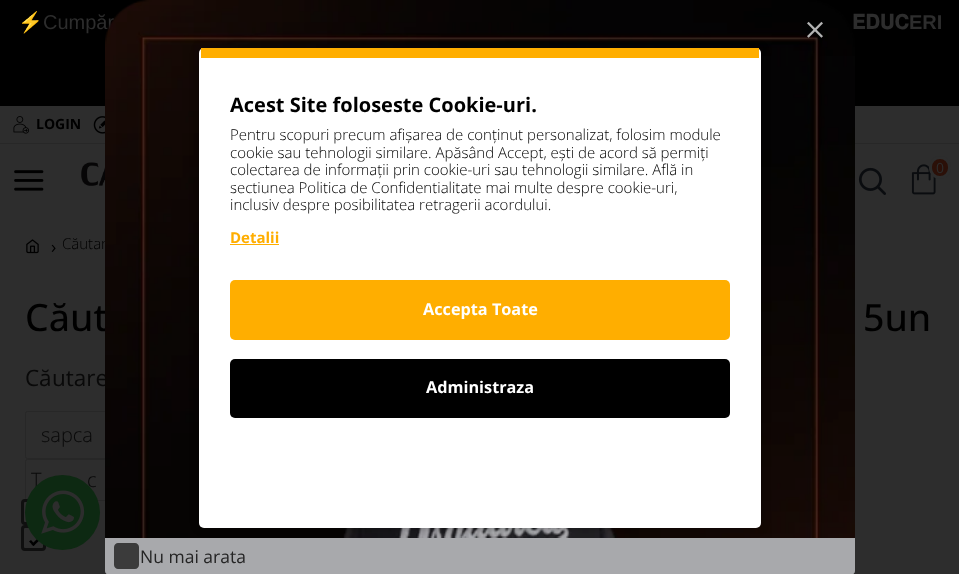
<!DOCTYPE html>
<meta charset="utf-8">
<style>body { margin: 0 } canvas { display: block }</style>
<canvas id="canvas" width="959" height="574"></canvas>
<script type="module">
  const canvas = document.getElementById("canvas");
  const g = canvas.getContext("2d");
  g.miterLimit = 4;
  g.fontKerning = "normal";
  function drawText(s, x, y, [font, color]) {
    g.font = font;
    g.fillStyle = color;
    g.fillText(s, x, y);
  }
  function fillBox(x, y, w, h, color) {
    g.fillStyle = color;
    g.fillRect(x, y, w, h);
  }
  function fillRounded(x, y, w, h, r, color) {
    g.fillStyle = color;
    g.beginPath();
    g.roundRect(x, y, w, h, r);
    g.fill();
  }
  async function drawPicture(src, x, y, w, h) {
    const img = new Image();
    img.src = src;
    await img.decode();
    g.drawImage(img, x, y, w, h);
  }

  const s1 = ["20px Noto Color Emoji", "#2D2D2D"];
  const s2 = ["20px Liberation Sans", "#2D2D2D"];
  const s3 = ["bold 20px FreeSans", "#2D2D2D"];
  const s4 = ["bold 20px Liberation Sans", "#2D2D2D"];
  const s5 = ["bold 14px Open Sans", "#000000"];
  const s6 = ["14px Open Sans", "#2D2D2D"];
  const s7 = ["17.5px Open Sans", "#000000"];
  const s8 = ["300 15px Open Sans", "#000000"];
  const s9 = ["500 37.5px Open Sans", "#000000"];
  const s10 = ["22.5px Open Sans", "#090909"];
  const s11 = ["22.5px 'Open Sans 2'", "#090909"];
  const s12 = ["300 20px Open Sans", "#090909"];
  const s13 = ["bold 20px Open Sans", "#000000"];
  const s14 = ["bold 15px Open Sans", "#FFAE00"];
  const s15 = ["bold 16.25px Open Sans", "#FFFFFF"];
  const s16 = ["17.5px Open Sans", "#242424"];

  fillBox(0, 0, 959, 574, "#2D2D2D");
  fillBox(0, 0, 959, 106, "#000000");
  drawText("⚡", 18, 29, s1);
  drawText("Cumpăr", 43, 29, s2);
  drawText("𝐄𝐃𝐔𝐂", 852, 29, s3);
  drawText("ERI", 909, 29, s4);
  fillBox(0, 143, 959, 1, "#272727");
  await drawPicture("pic1.png", 13, 116, 16, 18);
  drawText("LOGIN", 36, 129, s5);
  await drawPicture("pic2.png", 93, 116, 12, 18);
  await drawPicture("pic3.png", 81, 162, 24, 24);
  await drawPicture("pic4.png", 14, 170, 30, 21);
  await drawPicture("pic5.png", 858, 167, 28, 28);
  await drawPicture("pic6.png", 911, 164, 25, 31);
  g.fillStyle = "#2B1008";
  g.beginPath();
  g.roundRect(930.5, 157.5, 19, 20, 9.5);
  g.fill();
  g.strokeStyle = "#2D2D2D";
  g.lineWidth = 3;
  g.stroke();
  drawText("0", 936, 173, s6);
  await drawPicture("pic7.png", 26, 239, 13, 15);
  drawText("›", 51, 253, s7);
  drawText("Căutar", 62, 249, s8);
  drawText("Căut", 25, 331, s9);
  drawText("5un", 863, 331, s9);
  drawText("C", 25, 386, s10);
  drawText("ă", 39, 386, s11);
  drawText("utare", 52, 386, s10);
  g.beginPath();
  g.roundRect(25.5, 411.5, 255, 47, 2);
  g.strokeStyle = "#272727";
  g.lineWidth = 1;
  g.stroke();
  drawText("sapca", 41, 442, s12);
  g.beginPath();
  g.roundRect(25.5, 459.5, 624, 41, 2);
  g.stroke();
  drawText("T", 31, 487, s12);
  drawText("c", 87, 487, s12);
  g.fillStyle = "#2D2D2D";
  g.beginPath();
  g.roundRect(22.5, 500.5, 22, 23, 2.5);
  g.fill();
  g.strokeStyle = "#0F0F0F";
  g.lineWidth = 3;
  g.stroke();
  g.beginPath();
  g.roundRect(22.5, 526.5, 22, 23, 2.5);
  g.stroke();
  g.fillStyle = "#000000";
  g.beginPath();
  g.moveTo(40.5, 535.5);
  g.lineTo(42.5, 537.5);
  g.lineTo(33.5, 546);
  g.lineTo(31.5, 544.5);
  g.closePath();
  g.fill();
  g.beginPath();
  g.moveTo(31, 540);
  g.lineTo(35, 544.5);
  g.lineTo(33.5, 546);
  g.lineTo(29, 541.5);
  g.closePath();
  g.fill();
  await drawPicture("pic10.png", 105, 0, 750, 538);
  g.fillStyle = "#A8A9AC";
  g.beginPath();
  g.moveTo(105, 538);
  g.lineTo(855, 538);
  g.lineTo(855, 571);
  g.bezierCurveTo(855, 573, 853, 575, 851, 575);
  g.lineTo(109, 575);
  g.bezierCurveTo(107, 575, 105, 573, 105, 571);
  g.closePath();
  g.fill();
  g.fillStyle = "rgba(0, 0, 0, 0.3)";
  g.filter = "blur(4.5px)";
  g.beginPath();
  g.roundRect(199, 48, 562, 480, 5);
  g.fill();
  g.filter = "none";
  fillRounded(199, 48, 562, 480, 5, "#FFFFFF");
  fillBox(201, 48, 558, 10, "#FFAE00");
  drawText("Acest Site foloseste Cookie-uri.", 230, 112, s13);
  drawText("Pentru scopuri precum afișarea de conținut personalizat, folosim module", 230, 140, s8);
  drawText("cookie sau tehnologii similare. Apăsând Accept, ești de acord să permiți", 230, 158, s8);
  drawText("colectarea de informații prin cookie-uri sau tehnologii similare. Află in", 230, 175, s8);
  drawText("sectiunea Politica de Confidentialitate mai multe despre cookie-uri,", 230, 193, s8);
  drawText("inclusiv despre posibilitatea retragerii acordului.", 230, 210, s8);
  drawText("Detalii", 230, 243, s14);
  fillBox(230, 244, 49, 1, "#FFAE00");
  fillRounded(230, 280, 500, 60, 5, "#FFAE00");
  drawText("Accepta Toate", 423, 315, s15);
  fillRounded(230, 359, 500, 59, 5, "#000000");
  drawText("Administraza", 426, 393, s15);
  g.fillStyle = "#0D2912";
  g.beginPath();
  g.arc(62.5, 512.5, 37.5, 0, Math.PI * 2);
  g.fill();
  await drawPicture("pic8.png", 41, 490, 44, 44);
  await drawPicture("pic9.png", 807, 21, 16, 17);
  g.fillStyle = "#3B3B3B";
  g.beginPath();
  g.moveTo(118, 543);
  g.lineTo(135, 543);
  g.bezierCurveTo(137, 543, 139, 545, 139, 547);
  g.lineTo(139, 565);
  g.bezierCurveTo(139, 567, 137, 569, 135, 569);
  g.lineTo(118, 569);
  g.bezierCurveTo(116, 569, 114, 567, 114, 565);
  g.lineTo(114, 547);
  g.bezierCurveTo(114, 545, 116, 543, 118, 543);
  g.closePath();
  g.fill();
  drawText("Nu mai arata", 140, 563, s16);
</script>
